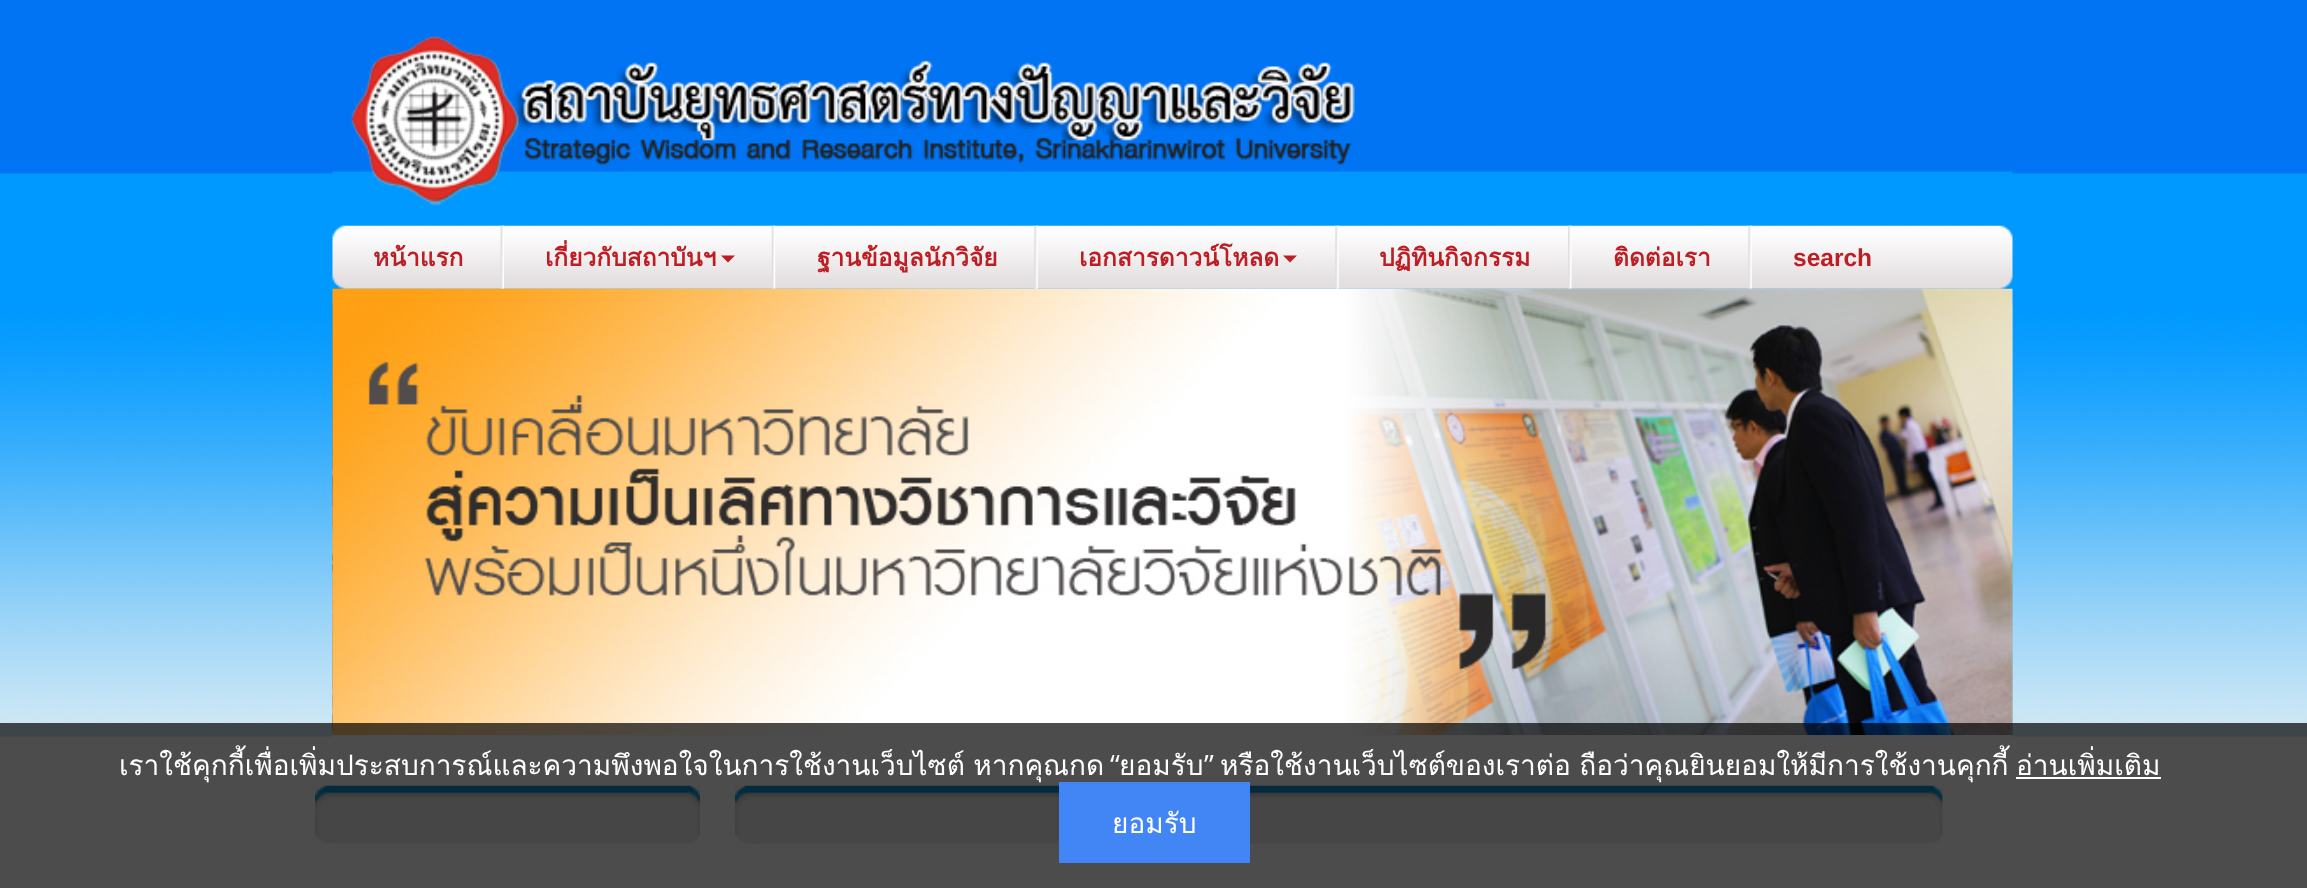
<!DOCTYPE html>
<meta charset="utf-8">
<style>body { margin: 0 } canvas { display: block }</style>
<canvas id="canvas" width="2307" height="888"></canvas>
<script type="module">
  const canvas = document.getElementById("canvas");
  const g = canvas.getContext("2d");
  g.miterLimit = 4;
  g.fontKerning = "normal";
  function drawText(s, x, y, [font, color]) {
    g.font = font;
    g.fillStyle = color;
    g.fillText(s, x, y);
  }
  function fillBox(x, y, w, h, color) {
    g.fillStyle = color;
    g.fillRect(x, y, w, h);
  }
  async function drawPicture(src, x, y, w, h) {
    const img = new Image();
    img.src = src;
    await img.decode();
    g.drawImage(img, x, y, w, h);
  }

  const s1 = ["bold 24.5px Loma", "#BD1E24"];
  const s2 = ["bold 24.5px Liberation Sans", "#BD1E24"];
  const s3 = ["28px Loma", "#FFFFFF"];
  const s4 = ["28px Open Sans", "#FFFFFF"];

  fillBox(0, 0, 2307, 888, "#FFFFFF");
  await drawPicture("pic1.png", 0, 0, 2307, 737);
  await drawPicture("pic2.png", 332, 171, 1681, 566);
  await drawPicture("pic3.png", 351, 36, 1004, 170);
  await drawPicture("pic4.png", 332, 225, 1681, 64);
  await drawPicture("pic5.png", 500, 225, 4, 64);
  drawText("หน้าแรก", 373, 266, s1);
  await drawPicture("pic6.png", 771, 225, 5, 64);
  drawText("เกี่ยวกับสถาบันฯ", 545, 266, s1);
  g.beginPath();
  g.moveTo(721, 255.5);
  g.lineTo(735, 255.5);
  g.lineTo(728, 262.5);
  g.closePath();
  g.fill();
  await drawPicture("pic7.png", 1034, 225, 4, 64);
  drawText("ฐานข้อมูลนักวิจัย", 817, 266, s1);
  await drawPicture("pic8.png", 1335, 225, 4, 64);
  drawText("เอกสารดาวน์โหลด", 1079, 266, s1);
  g.beginPath();
  g.moveTo(1283, 255.5);
  g.lineTo(1297, 255.5);
  g.lineTo(1290, 262.5);
  g.closePath();
  g.fill();
  await drawPicture("pic9.png", 1568, 225, 4, 64);
  drawText("ปฏิทินกิจกรรม", 1379, 266, s1);
  await drawPicture("pic10.png", 1748, 225, 4, 64);
  drawText("ติดต่อเรา", 1613, 266, s1);
  drawText("search", 1793, 266, s2);
  await drawPicture("pic11.png", 332, 288, 1681, 447);
  await drawPicture("pic12.png", 332, 785, 368, 59);
  await drawPicture("pic13.png", 315, 785, 20, 59);
  await drawPicture("pic14.png", 752, 785, 1191, 59);
  await drawPicture("pic13.png", 735, 785, 20, 59);
  fillBox(0, 723, 2307, 165, "rgba(0, 0, 0, 0.7)");
  g.wordSpacing = "-1px";
  drawText("เราใช้คุกกี้เพื่อเพิ่มประสบการณ์และความพึงพอใจในการใช้งานเว็บไซต์ หากคุณกด", 119, 775, s3);
  g.wordSpacing = "0px";
  drawText("“", 1110, 775, s4);
  drawText("ยอมรับ", 1119, 775, s3);
  drawText("”", 1204, 775, s4);
  g.wordSpacing = "-1px";
  drawText("หรือใช้งานเว็บไซต์ของเราต่อ ถือว่าคุณยินยอมให้มีการใช้งานคุกกี้", 1220, 775, s3);
  g.wordSpacing = "0px";
  drawText("อ่านเพิ่มเติม", 2016, 775, s3);
  fillBox(2016, 777, 145, 2, "#FFFFFF");
  fillBox(1059, 782, 191, 81, "#4285F4");
  drawText("ยอมรับ", 1112, 833, s3);
</script>
